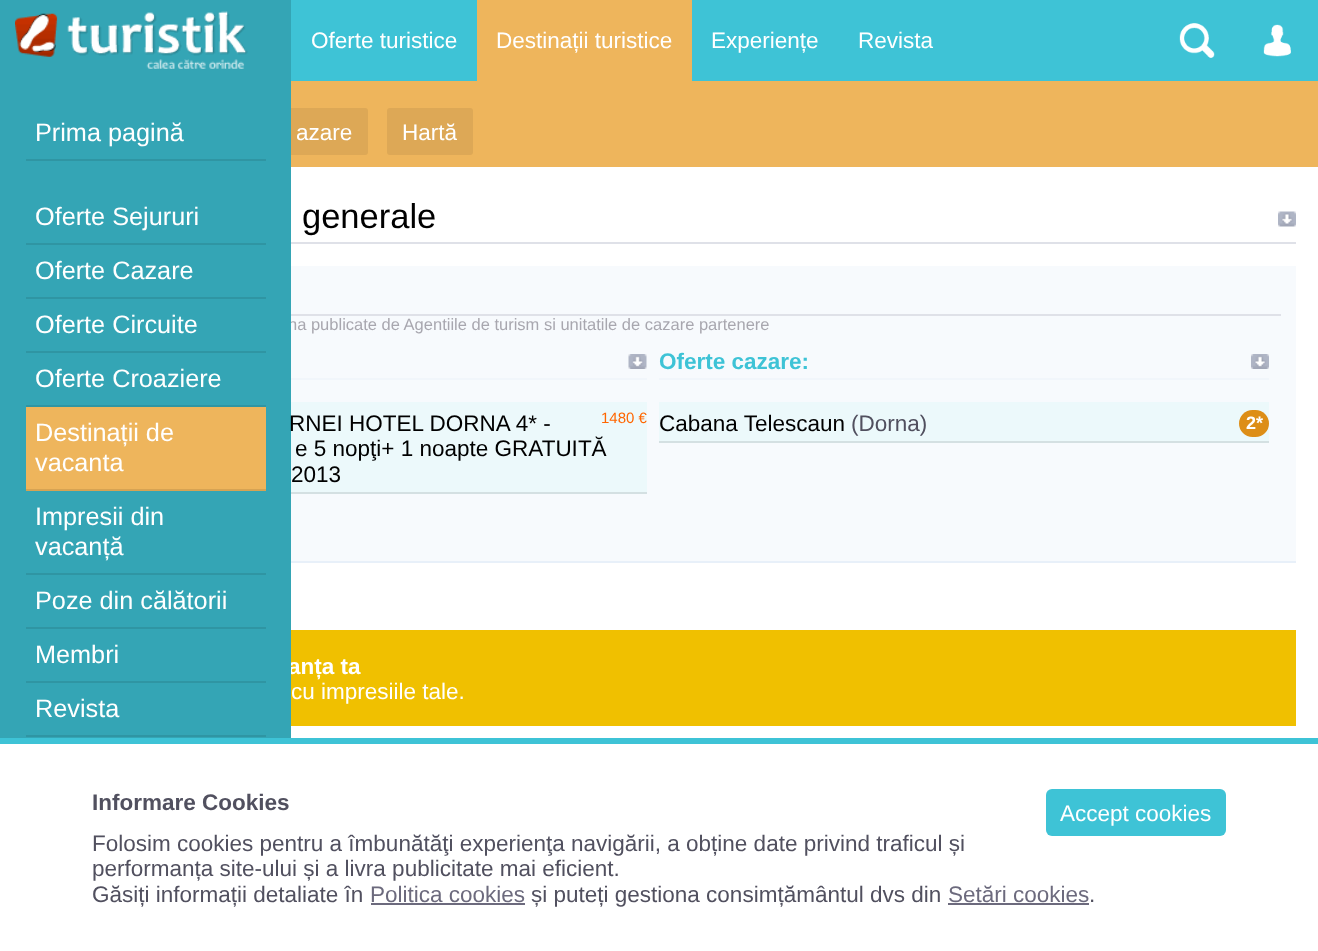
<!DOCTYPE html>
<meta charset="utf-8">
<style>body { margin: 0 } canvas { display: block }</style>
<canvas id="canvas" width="1318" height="951"></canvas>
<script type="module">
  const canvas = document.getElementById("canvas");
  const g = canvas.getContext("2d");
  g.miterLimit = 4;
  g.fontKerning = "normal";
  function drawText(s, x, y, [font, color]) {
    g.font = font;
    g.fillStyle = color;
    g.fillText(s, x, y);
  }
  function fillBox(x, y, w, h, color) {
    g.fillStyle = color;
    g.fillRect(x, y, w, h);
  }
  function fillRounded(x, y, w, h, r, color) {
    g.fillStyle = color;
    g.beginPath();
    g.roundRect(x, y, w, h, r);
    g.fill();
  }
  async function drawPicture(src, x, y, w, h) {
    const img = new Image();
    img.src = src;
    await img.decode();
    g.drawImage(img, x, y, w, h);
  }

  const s1 = ["22.5px Liberation Sans", "#FFFFFF"];
  const s2 = ["16.5px Liberation Sans", "#A8A7AF"];
  const s3 = ["bold 22.5px Liberation Sans", "#FFFFFF"];
  const s4 = ["25.25px Liberation Sans", "#FFFFFF"];
  const s5 = ["34.5px Liberation Sans", "#000000"];
  const s6 = ["bold 22.5px Liberation Sans", "#3EC3D6"];
  const s7 = ["22.5px Liberation Sans", "#000000"];
  const s8 = ["22.5px Liberation Sans", "#51505F"];
  const s9 = ["bold 18px Liberation Sans", "#FFFFFF"];
  const s10 = ["15px Liberation Sans", "#FF6600"];
  const s11 = ["bold 22.5px Liberation Sans", "#51505F"];
  const s12 = ["22.5px Liberation Sans", "#6C6A7D"];

  fillBox(0, 0, 1318, 951, "#FFFFFF");
  fillBox(291, 0, 1027, 81, "#3EC3D6");
  drawText("Oferte turistice", 311, 48, s1);
  fillBox(477, 0, 215, 81, "#EEB55C");
  drawText("Destinații turistice", 496, 48, s1);
  drawText("Experiențe", 711, 48, s1);
  drawText("Revista", 858, 48, s1);
  await drawPicture("pic1.png", 1179, 23, 36, 35);
  await drawPicture("pic2.png", 1263, 24, 28, 33);
  fillBox(291, 81, 1027, 86, "#EEB55C");
  fillRounded(266, 108, 102, 47, 3, "#DDA856");
  fillBox(291, 266, 1005, 295, "#F7FAFD");
  drawText("na publicate de Agentiile de turism si unitatile de cazare partenere", 288, 330, s2);
  fillBox(291, 630, 1005, 96, "#F0C000");
  drawText("anța ta", 288, 674, s3);
  fillBox(0, 0, 291, 738, "#34A5B5");
  await drawPicture("pic3.png", 15, 11, 233, 58);
  fillBox(26, 159, 240, 2, "#2F95A3");
  drawText("Prima pagină", 35, 141, s4);
  fillBox(26, 243, 240, 2, "#2F95A3");
  drawText("Oferte Sejururi", 35, 225, s4);
  fillBox(26, 297, 240, 2, "#2F95A3");
  drawText("Oferte Cazare", 35, 279, s4);
  fillBox(26, 351, 240, 2, "#2F95A3");
  drawText("Oferte Circuite", 35, 333, s4);
  fillBox(26, 405, 240, 2, "#2F95A3");
  drawText("Oferte Croaziere", 35, 387, s4);
  fillBox(26, 407, 240, 82, "#EEB55C");
  fillBox(26, 489, 240, 2, "#D6A353");
  drawText("Destinații de", 35, 441, s4);
  drawText("vacanta", 35, 471, s4);
  fillBox(26, 573, 240, 2, "#2F95A3");
  drawText("Impresii din", 35, 525, s4);
  drawText("vacanță", 35, 555, s4);
  fillBox(26, 627, 240, 2, "#2F95A3");
  drawText("Poze din călătorii", 35, 609, s4);
  fillBox(26, 681, 240, 2, "#2F95A3");
  drawText("Membri", 35, 663, s4);
  fillBox(26, 735, 240, 2, "#2F95A3");
  drawText("Revista", 35, 717, s4);
  drawText("azare", 296, 140, s1);
  fillRounded(387, 108, 86, 47, 3, "#DDA856");
  drawText("Hartă", 402, 140, s1);
  await drawPicture("pic4.png", 1278, 211, 18, 16);
  fillBox(291, 242, 1005, 2, "#DFE1E8");
  drawText("generale", 302, 228, s5);
  fillBox(291, 561, 1005, 2, "#E8F0F9");
  fillBox(291, 314, 990, 2, "#DFE1E8");
  await drawPicture("pic5.png", 1251, 354, 18, 15);
  fillBox(659, 378, 610, 2, "#F1F6FB");
  drawText("Oferte cazare:", 659, 369, s6);
  fillBox(659, 402, 610, 39, "#ECF9FB");
  fillBox(659, 441, 610, 2, "#D4E0E2");
  drawText("Cabana Telescaun", 659, 431, s7);
  drawText("(Dorna)", 851, 431, s8);
  fillRounded(1239, 410, 30, 27, 13.5, "#DD8E17");
  drawText("2*", 1246, 429, s9);
  await drawPicture("pic6.png", 628, 354, 19, 15);
  fillBox(291, 378, 356, 2, "#F1F6FB");
  fillBox(291, 402, 356, 90, "#ECF9FB");
  fillBox(291, 492, 356, 2, "#D4E0E2");
  drawText("RNEI HOTEL DORNA 4* -", 289, 431, s7);
  drawText("1480 €", 601, 423, s10);
  drawText("e 5 nopţi+ 1 noapte GRATUITĂ", 295, 456, s7);
  drawText("2013", 291, 482, s7);
  drawText("cu impresiile tale.", 291, 699, s1);
  fillBox(0, 738, 1318, 6, "#3EC3D6");
  drawText("Informare Cookies", 92, 810, s11);
  fillRounded(1046, 789, 180, 47, 6, "#3EC3D6");
  drawText("Accept cookies", 1060, 821, s1);
  drawText("Folosim cookies pentru a îmbunătăţi experienţa navigării, a obține date privind traficul și", 92, 851, s8);
  drawText("performanța site-ului și a livra publicitate mai eficient.", 92, 876, s8);
  drawText("Găsiți informații detaliate în", 92, 902, s8);
  drawText("Politica cookies", 370, 902, s12);
  fillBox(371, 903, 154, 2, "#6C6A7D");
  drawText("și puteți gestiona consimțământul dvs din", 531, 902, s8);
  drawText("Setări cookies", 948, 902, s12);
  fillBox(948, 903, 141, 2, "#6C6A7D");
  drawText(".", 1089, 902, s8);
</script>
